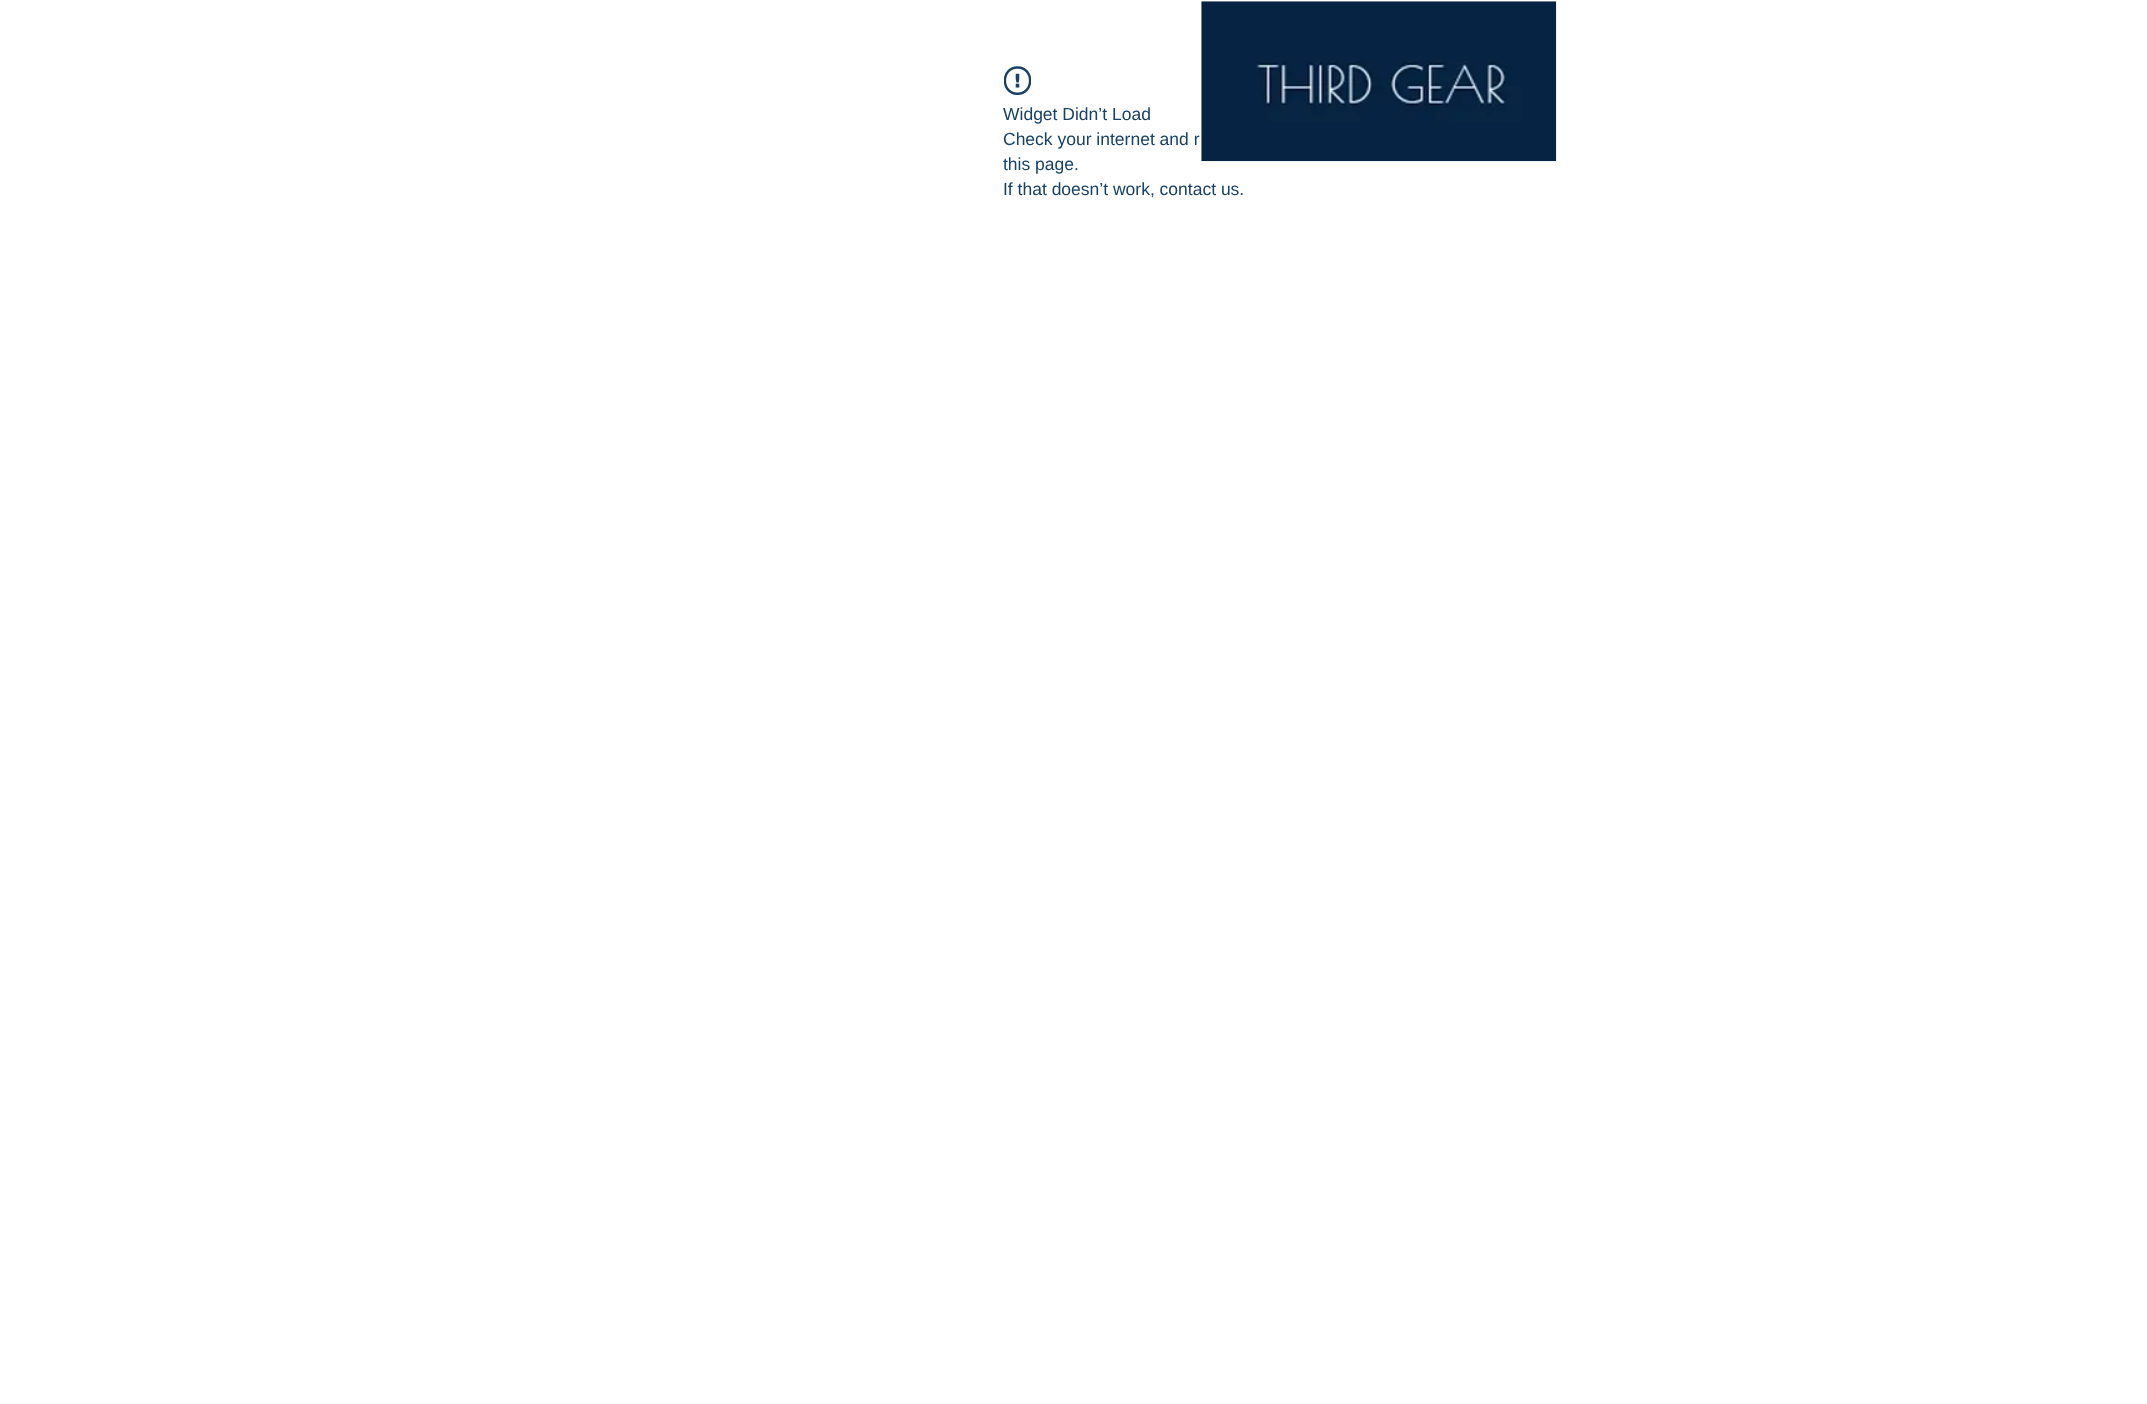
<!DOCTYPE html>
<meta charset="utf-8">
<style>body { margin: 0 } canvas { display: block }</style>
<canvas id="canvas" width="2147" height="1404"></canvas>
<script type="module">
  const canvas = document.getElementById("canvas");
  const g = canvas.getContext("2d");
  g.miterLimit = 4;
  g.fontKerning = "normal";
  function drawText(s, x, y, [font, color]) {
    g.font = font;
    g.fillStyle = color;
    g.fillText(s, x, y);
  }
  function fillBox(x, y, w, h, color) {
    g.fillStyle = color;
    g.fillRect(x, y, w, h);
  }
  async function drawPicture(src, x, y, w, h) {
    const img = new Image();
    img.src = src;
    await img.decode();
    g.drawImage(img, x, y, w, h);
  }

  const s1 = ["17.5px Liberation Sans", "#174165"];

  fillBox(0, 0, 2147, 1404, "#FFFFFF");
  await drawPicture("pic1.png", 1004, 66, 27, 29);
  drawText("Widget Didn’t Load", 1003, 120, s1);
  drawText("Check your internet and r", 1003, 145, s1);
  drawText("this page.", 1003, 170, s1);
  drawText("If that doesn’t work, contact us.", 1003, 195, s1);
  await drawPicture("pic2.png", 1201, 1, 356, 161);
</script>
